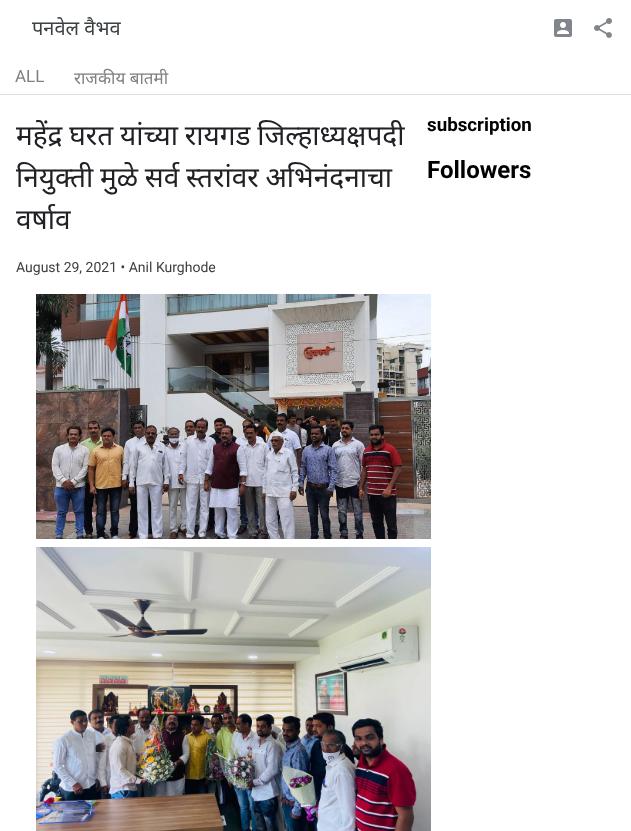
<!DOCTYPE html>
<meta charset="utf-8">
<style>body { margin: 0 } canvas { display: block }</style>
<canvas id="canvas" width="631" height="831"></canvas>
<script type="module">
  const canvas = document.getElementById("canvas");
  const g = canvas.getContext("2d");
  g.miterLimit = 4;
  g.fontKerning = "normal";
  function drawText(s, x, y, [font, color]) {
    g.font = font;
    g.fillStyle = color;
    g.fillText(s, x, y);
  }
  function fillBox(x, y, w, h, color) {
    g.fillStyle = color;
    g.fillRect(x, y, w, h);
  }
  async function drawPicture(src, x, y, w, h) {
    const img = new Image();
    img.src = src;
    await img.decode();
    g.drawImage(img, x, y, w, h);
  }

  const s1 = ["20px Noto Sans", "#3C4043"];
  const s2 = ["17px Roboto", "#808080"];
  const s3 = ["17px Noto Sans", "#808080"];
  const s4 = ["28px Noto Sans", "#202124"];
  const s5 = ["14px Roboto", "#3C4043"];
  const s6 = ["bold 18.75px Roboto", "#000000"];
  const s7 = ["bold 24px Roboto", "#000000"];

  fillBox(0, 0, 631, 831, "#FFFFFF");
  fillBox(0, 94, 631, 1, "#E0E0E0");
  drawText("पनवेल वैभव", 32, 35, s1);
  await drawPicture("pic1.png", 554, 19, 18, 18);
  await drawPicture("pic2.png", 594, 18, 18, 20);
  drawText("ALL", 15, 82, s2);
  drawText("राजकीय बातमी", 74, 84, s3);
  g.wordSpacing = "-0.5px";
  drawText("महेंद्र घरत यांच्या रायगड जिल्हाध्यक्षपदी", 16, 145, s4);
  drawText("नियुक्ती मुळे सर्व स्तरांवर अभिनंदनाचा", 16, 187, s4);
  g.wordSpacing = "0px";
  drawText("वर्षाव", 16, 229, s4);
  drawText("August 29, 2021 • Anil Kurghode", 16, 272, s5);
  await drawPicture("pic3.png", 36, 294, 395, 245);
  await drawPicture("pic4.png", 36, 547, 395, 284);
  drawText("subscription", 427, 131, s6);
  drawText("Followers", 427, 178, s7);
</script>
